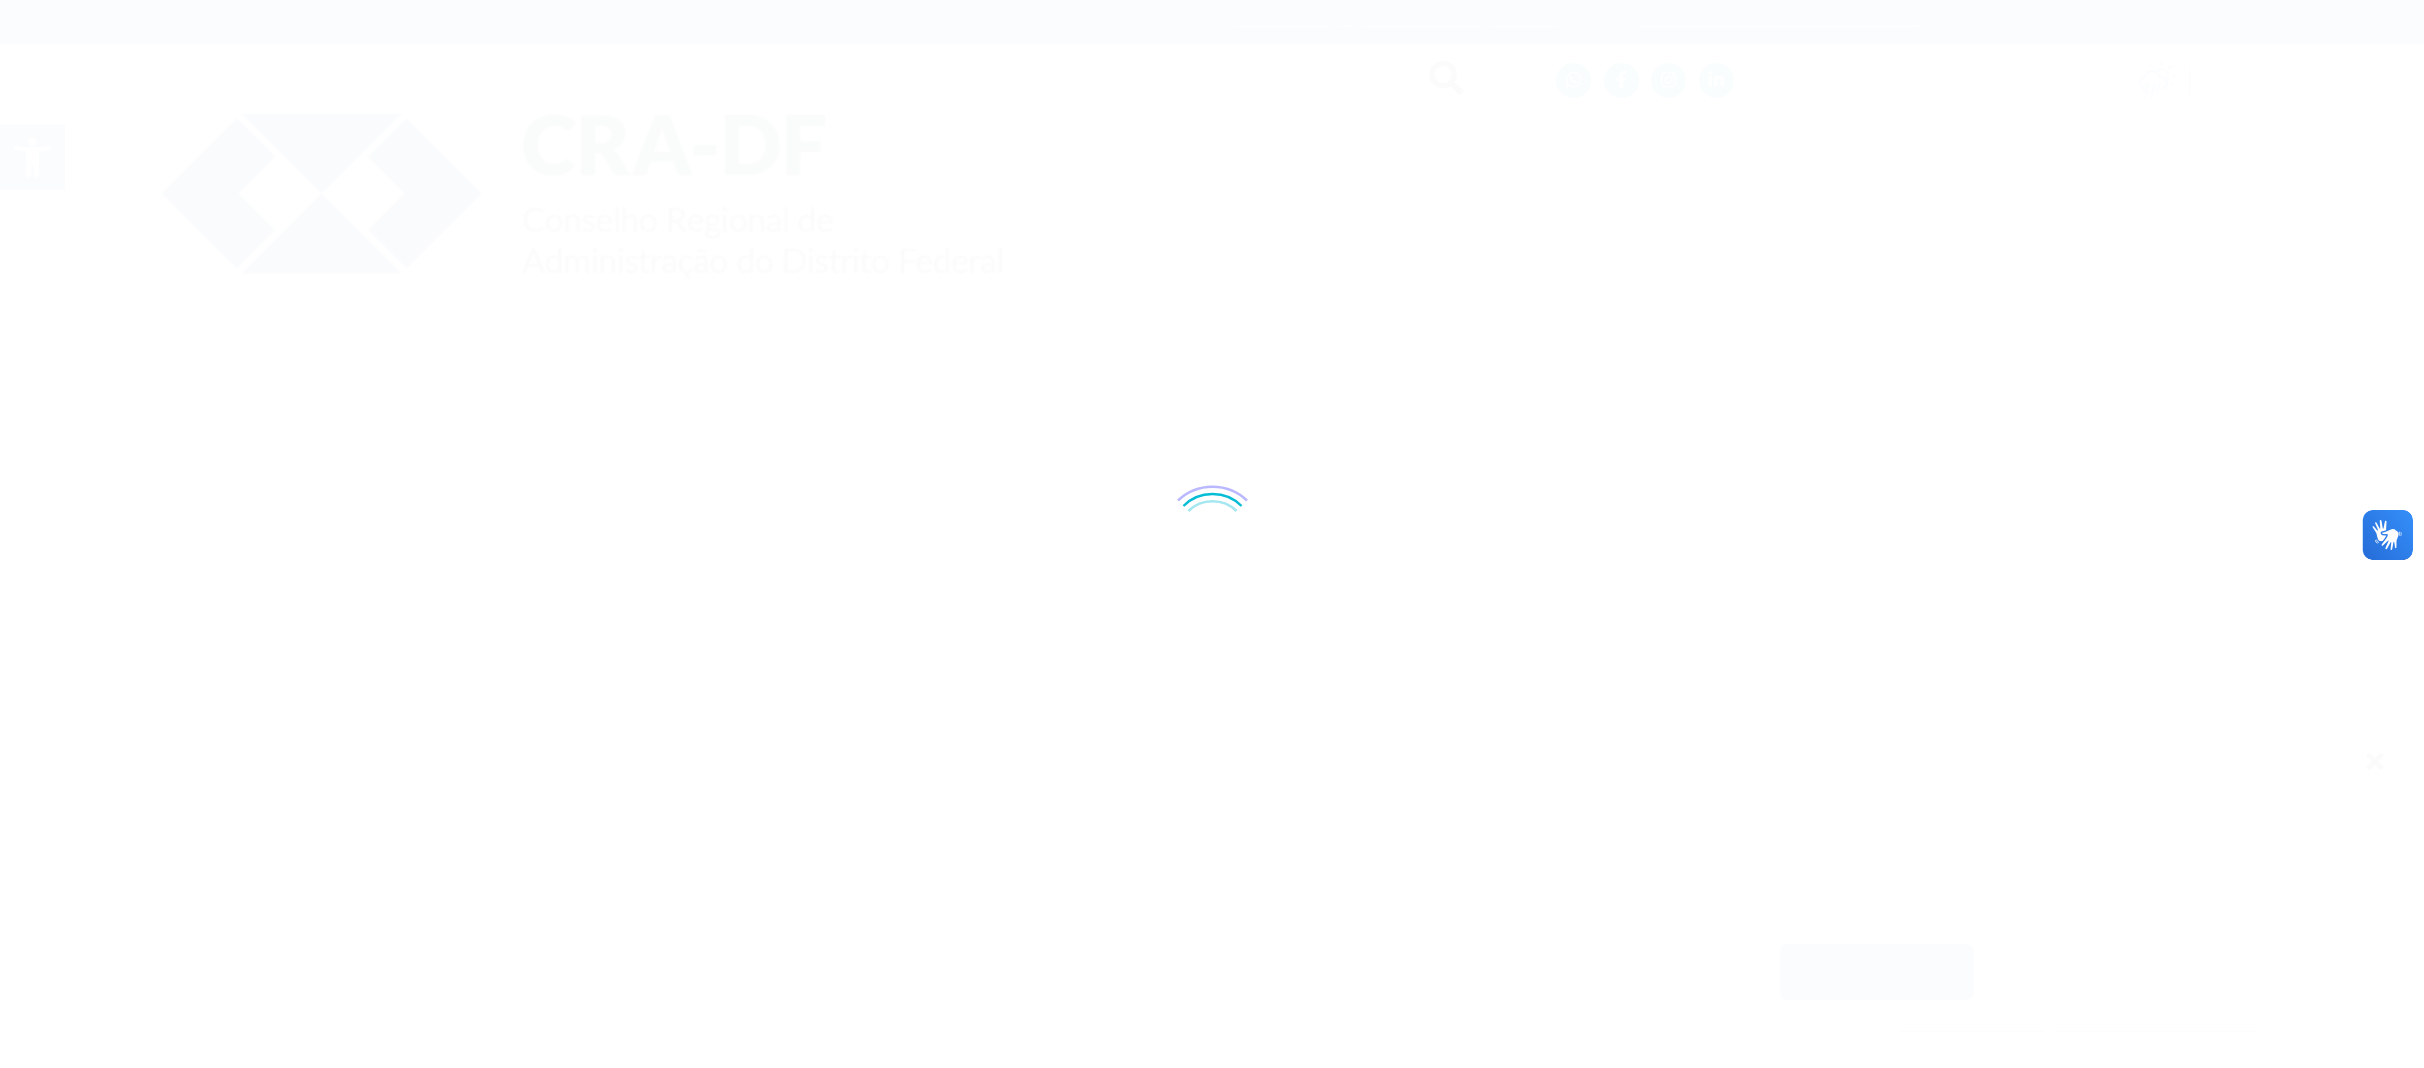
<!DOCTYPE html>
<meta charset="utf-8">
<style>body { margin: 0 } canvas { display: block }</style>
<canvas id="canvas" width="2424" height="1068"></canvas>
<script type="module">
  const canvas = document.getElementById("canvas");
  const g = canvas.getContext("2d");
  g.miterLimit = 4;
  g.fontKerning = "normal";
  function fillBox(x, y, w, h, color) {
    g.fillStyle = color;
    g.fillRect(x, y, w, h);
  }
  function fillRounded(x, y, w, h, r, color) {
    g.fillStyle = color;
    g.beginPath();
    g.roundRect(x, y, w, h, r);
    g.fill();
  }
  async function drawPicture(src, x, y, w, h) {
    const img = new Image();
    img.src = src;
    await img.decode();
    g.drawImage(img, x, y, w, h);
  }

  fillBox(0, 0, 2424, 1068, "#FFFFFF");
  fillBox(0, 0, 2424, 44, "#FAFCFD");
  fillBox(1236, 26, 93, 1, "#FFFFFF");
  fillBox(1341, 26, 10, 1, "#FFFFFF");
  fillBox(1364, 26, 116, 1, "#FFFFFF");
  fillBox(1493, 26, 62, 1, "#FFFFFF");
  fillBox(1639, 26, 280, 1, "#FFFFFF");
  await drawPicture("pic1.png", 0, 48, 2424, 282);
  await drawPicture("pic2.png", 1429, 60, 35, 35);
  g.fillStyle = "#FAFDFE";
  g.beginPath();
  g.arc(1573.5, 80.5, 17.5, 0, Math.PI * 2);
  g.fill();
  await drawPicture("pic3.png", 1566, 72, 16, 16);
  g.beginPath();
  g.arc(1621.5, 80.5, 17.5, 0, Math.PI * 2);
  g.fill();
  await drawPicture("pic4.png", 1616, 70, 10, 19);
  g.beginPath();
  g.arc(1668.5, 80.5, 17.5, 0, Math.PI * 2);
  g.fill();
  await drawPicture("pic5.png", 1661, 72, 16, 16);
  g.beginPath();
  g.arc(1716.5, 80.5, 17.5, 0, Math.PI * 2);
  g.fill();
  await drawPicture("pic6.png", 1708, 71, 16, 16);
  fillBox(2189, 68, 1, 26, "#FCFCFC");
  await drawPicture("pic7.png", 2138, 60, 39, 38);
  await drawPicture("pic8.png", 160, 112, 844, 170);
  fillBox(0, 125, 65, 65, "#FBFCFD");
  await drawPicture("pic9.png", 13, 138, 39, 40);
  g.beginPath();
  g.moveTo(1178, 500.5);
  g.bezierCurveTo(1197, 482, 1228, 482, 1247, 500.5);
  g.strokeStyle = "#BAB8FF";
  g.lineWidth = 2.5;
  g.stroke();
  g.beginPath();
  g.moveTo(1183.5, 506);
  g.bezierCurveTo(1199, 490, 1226, 490, 1241.5, 506);
  g.strokeStyle = "#05BDD5";
  g.stroke();
  g.beginPath();
  g.moveTo(1188.5, 511);
  g.bezierCurveTo(1201.5, 498, 1223.5, 498, 1236.5, 511);
  g.strokeStyle = "#A5E7F0";
  g.stroke();
  await drawPicture("pic10.png", 2362, 510, 51, 50);
  await drawPicture("pic11.png", 2363, 510, 50, 50);
  await drawPicture("pic12.png", 2366, 752, 18, 18);
  fillRounded(1780, 944, 194, 56, 8, "#FBFCFE");
  fillBox(1901, 1031, 142, 1, "#FBFCFE");
  fillBox(2055, 1031, 199, 1, "#FBFCFE");
</script>
